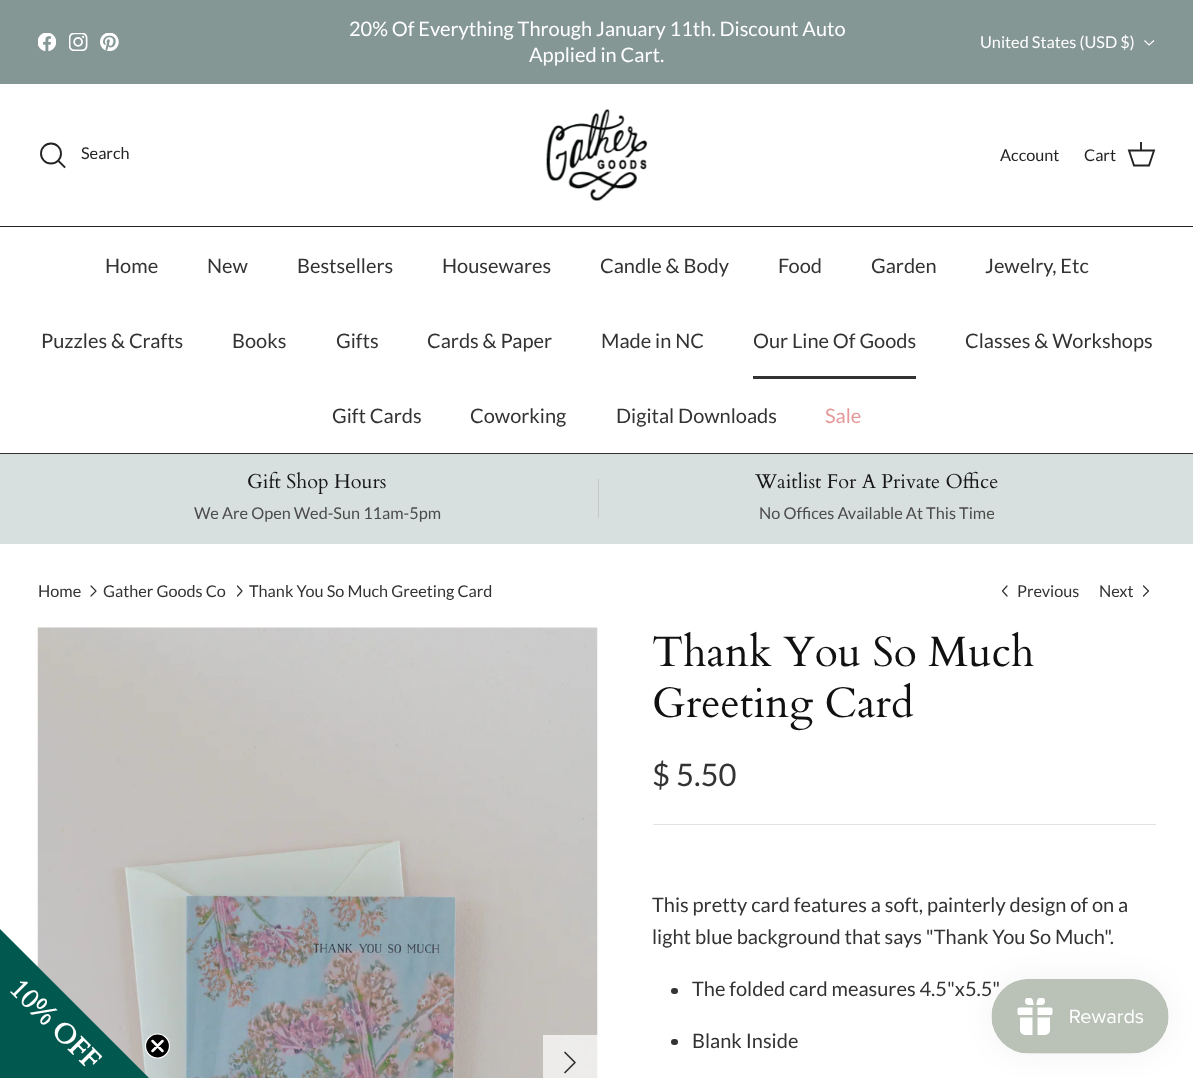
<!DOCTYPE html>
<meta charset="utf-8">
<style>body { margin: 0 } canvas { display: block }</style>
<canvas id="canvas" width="1193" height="1078"></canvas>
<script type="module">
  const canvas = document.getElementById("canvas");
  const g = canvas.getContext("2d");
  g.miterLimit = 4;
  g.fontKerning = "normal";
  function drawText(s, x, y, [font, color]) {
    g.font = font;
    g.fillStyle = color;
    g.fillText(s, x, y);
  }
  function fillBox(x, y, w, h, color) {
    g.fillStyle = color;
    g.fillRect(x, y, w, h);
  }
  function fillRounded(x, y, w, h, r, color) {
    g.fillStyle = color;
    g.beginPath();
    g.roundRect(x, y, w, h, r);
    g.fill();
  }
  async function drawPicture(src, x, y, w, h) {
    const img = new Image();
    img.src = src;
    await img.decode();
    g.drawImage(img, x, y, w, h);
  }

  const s1 = ["20px Lato", "#FFFFFF"];
  const s2 = ["16.25px Lato", "#FFFFFF"];
  const s3 = ["16.25px Lato", "#232323"];
  const s4 = ["20px Lato", "#333333"];
  const s5 = ["20px Lato", "#E49A9A"];
  const s6 = ["20px Cardo", "#171717"];
  const s7 = ["16.25px Lato", "#4C4C4B"];
  const s8 = ["16.25px Lato", "#333333"];
  const s9 = ["42.5px Cardo", "#111111"];
  const s10 = ["31px Lato", "#333333"];

  fillBox(0, 0, 1193, 1078, "#FFFFFF");
  fillBox(0, 0, 1193, 84, "#849795");
  await drawPicture("pic1.png", 38, 33, 18, 18);
  await drawPicture("pic2.png", 69, 33, 19, 18);
  await drawPicture("pic3.png", 100, 33, 19, 18);
  drawText("20% Of Everything Through January 11th. Discount Auto", 349, 36, s1);
  drawText("Applied in Cart.", 529, 62, s1);
  drawText("United States (USD $)", 980, 48, s2);
  g.beginPath();
  g.moveTo(1154, 40.5);
  g.lineTo(1149, 45);
  g.lineTo(1144.5, 40.5);
  g.strokeStyle = "#FFFFFF";
  g.lineWidth = 1.2;
  g.stroke();
  fillBox(0, 226, 1193, 1, "#232323");
  g.beginPath();
  g.arc(51, 153.5, 10, 0, Math.PI * 2);
  g.strokeStyle = "#232323";
  g.lineWidth = 1.9;
  g.stroke();
  drawText("Search", 81, 159, s3);
  g.beginPath();
  g.moveTo(58.5, 161);
  g.lineTo(64.5, 167);
  g.lineCap = "square";
  g.stroke();
  await drawPicture("pic4.png", 546, 109, 102, 92);
  drawText("Account", 1000, 161, s3);
  drawText("Cart", 1084, 161, s3);
  g.beginPath();
  g.moveTo(1129, 150.5);
  g.lineTo(1154, 150.5);
  g.lineTo(1149, 165.5);
  g.lineTo(1134, 165.5);
  g.closePath();
  g.lineCap = "butt";
  g.stroke();
  fillBox(1140, 142, 2, 9, "rgba(35, 35, 35, 0.95)");
  fillBox(0, 453, 1193, 1, "#333333");
  drawText("Home", 105, 273, s4);
  drawText("New", 207, 273, s4);
  drawText("Bestsellers", 297, 273, s4);
  drawText("Housewares", 442, 273, s4);
  drawText("Candle & Body", 600, 273, s4);
  drawText("Food", 778, 273, s4);
  drawText("Garden", 871, 273, s4);
  drawText("Jewelry, Etc", 985, 273, s4);
  drawText("Puzzles & Crafts", 41, 348, s4);
  drawText("Books", 232, 348, s4);
  drawText("Gifts", 336, 348, s4);
  drawText("Cards & Paper", 427, 348, s4);
  drawText("Made in NC", 601, 348, s4);
  drawText("Our Line Of Goods", 753, 348, s4);
  fillBox(753, 376, 163, 3, "#333333");
  drawText("Classes & Workshops", 965, 348, s4);
  drawText("Gift Cards", 332, 423, s4);
  drawText("Coworking", 470, 423, s4);
  drawText("Digital Downloads", 616, 423, s4);
  drawText("Sale", 825, 423, s5);
  fillBox(0, 454, 1193, 90, "#D8DFDF");
  drawText("Gift Shop Hours", 247, 488, s6);
  drawText("We Are Open Wed-Sun 11am-5pm", 194, 519, s7);
  fillBox(598, 479, 1, 39, "#C3C9C9");
  drawText("Waitlist For A Private Office", 755, 488, s6);
  drawText("No Offices Available At This Time", 759, 519, s7);
  drawText("Home", 38, 597, s8);
  g.beginPath();
  g.moveTo(91, 596);
  g.lineTo(96, 591);
  g.lineTo(91, 586);
  g.strokeStyle = "#333333";
  g.lineWidth = 1.2;
  g.lineCap = "round";
  g.lineJoin = "round";
  g.stroke();
  drawText("Gather Goods Co", 103, 597, s8);
  g.beginPath();
  g.moveTo(237.5, 596);
  g.lineTo(242, 591);
  g.lineTo(237.5, 586);
  g.stroke();
  drawText("Thank You So Much Greeting Card", 249, 597, s8);
  g.beginPath();
  g.moveTo(1007, 596);
  g.lineTo(1002.5, 591);
  g.lineTo(1007, 586);
  g.stroke();
  drawText("Previous", 1017, 597, s8);
  drawText("Next", 1099, 597, s8);
  g.beginPath();
  g.moveTo(1143.5, 596);
  g.lineTo(1148.5, 591);
  g.lineTo(1143.5, 586);
  g.stroke();
  await drawPicture("pic5.png", 37, 627, 561, 451);
  fillBox(543, 1035, 55, 43, "rgba(255, 255, 255, 0.7)");
  g.beginPath();
  g.moveTo(565, 1072.5);
  g.lineTo(575, 1062.5);
  g.lineTo(565, 1052.5);
  g.lineWidth = 1.7;
  g.stroke();
  drawText("Thank You So Much", 652, 666, s9);
  drawText("Greeting Card", 652, 717, s9);
  drawText("$ 5.50", 652, 786, s10);
  fillBox(653, 824, 503, 1, "#E2E2E2");
  drawText("This pretty card features a soft, painterly design of on a", 652, 912, s4);
  drawText("light blue background that says \"Thank You So Much\".", 652, 944, s4);
  fillRounded(671, 988, 7, 6, 3, "#333333");
  drawText("The folded card measures 4.5\"x5.5\"", 692, 996, s4);
  fillRounded(671, 1039, 7, 6, 3, "#333333");
  drawText("Blank Inside", 692, 1048, s4);
  g.fillStyle = "#00584E";
  g.beginPath();
  g.moveTo(0, 929);
  g.lineTo(0, 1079);
  g.lineTo(150, 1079);
  g.closePath();
  g.fill();
  g.font = "bold 27.5px Cardo";
  g.fillStyle = "#FFFFFF";
  g.save();
  g.translate(8, 990);
  g.rotate(45 * Math.PI / 180);
  g.fillText("10% OFF", 0, 0);
  g.restore();
  g.fillStyle = "#000000";
  g.beginPath();
  g.arc(157.5, 1046, 12, 0, Math.PI * 2);
  g.fill();
  g.strokeStyle = "#FFFFFF";
  g.lineWidth = 1.2;
  g.stroke();
  g.beginPath();
  g.moveTo(152.5, 1041);
  g.lineTo(162.5, 1051);
  g.moveTo(152.5, 1051);
  g.lineTo(162.5, 1041);
  g.closePath();
  g.lineWidth = 2.5;
  g.stroke();
  g.fillStyle = "rgba(0, 0, 0, 0.05)";
  g.filter = "blur(15.5px)";
  g.beginPath();
  g.roundRect(991, 979, 178, 75, 37.5);
  g.fill();
  g.filter = "none";
  await drawPicture("pic6.png", 991, 979, 178, 75);
</script>
